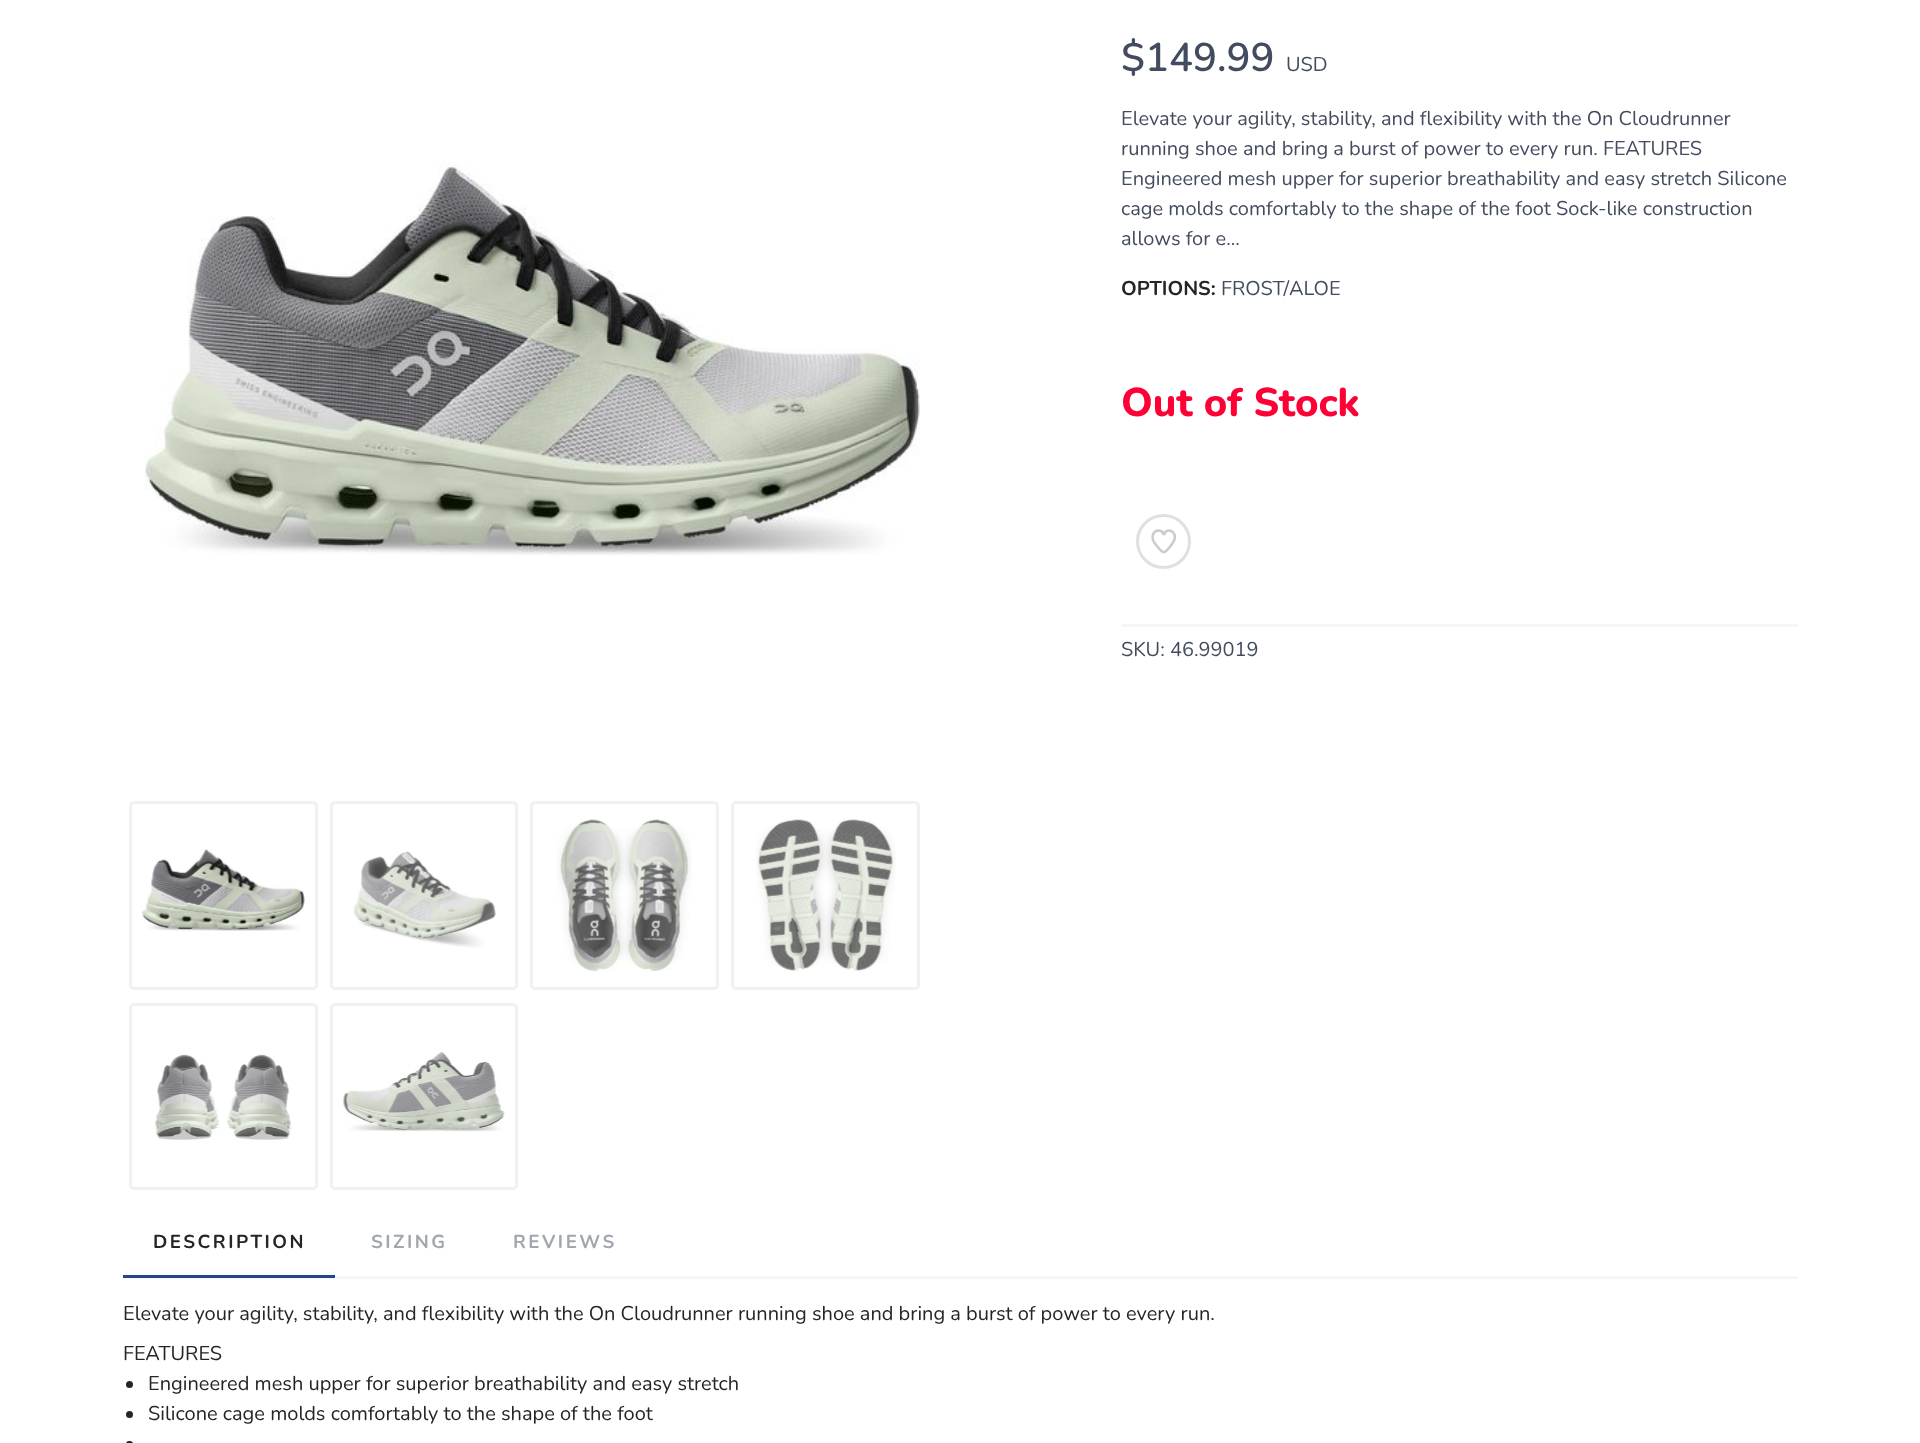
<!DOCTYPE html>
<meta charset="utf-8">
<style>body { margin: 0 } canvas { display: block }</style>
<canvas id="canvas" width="1920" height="1443"></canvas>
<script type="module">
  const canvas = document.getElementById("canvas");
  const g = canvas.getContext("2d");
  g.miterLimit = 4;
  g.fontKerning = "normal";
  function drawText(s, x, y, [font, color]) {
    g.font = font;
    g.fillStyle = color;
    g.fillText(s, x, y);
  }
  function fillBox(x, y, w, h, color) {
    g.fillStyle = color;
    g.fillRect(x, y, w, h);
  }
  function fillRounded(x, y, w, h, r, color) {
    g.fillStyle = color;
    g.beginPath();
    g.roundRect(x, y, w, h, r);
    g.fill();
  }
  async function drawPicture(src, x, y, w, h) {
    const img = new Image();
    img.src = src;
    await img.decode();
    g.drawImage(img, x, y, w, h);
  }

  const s1 = ["600 40px Nunito", "#434C5E"];
  const s2 = ["20px Nunito", "#434C5E"];
  const s3 = ["bold 20px Nunito", "#252525"];
  const s4 = ["800 40px Nunito", "#FF0036"];
  const s5 = ["bold 18.75px Nunito", "#252525"];
  const s6 = ["bold 18.75px Nunito", "#A1A6AF"];
  const s7 = ["20px Nunito", "#252525"];

  fillBox(0, 0, 1920, 1443, "#FFFFFF");
  await drawPicture("pic1.png", 144, 162, 776, 394);
  g.beginPath();
  g.roundRect(130.5, 802.5, 186, 186, 3.5);
  g.strokeStyle = "#EFF1F5";
  g.lineWidth = 3;
  g.stroke();
  await drawPicture("pic2.png", 141, 849, 164, 82);
  g.beginPath();
  g.roundRect(331.5, 802.5, 185, 186, 3.5);
  g.stroke();
  await drawPicture("pic3.png", 353, 851, 143, 97);
  g.beginPath();
  g.roundRect(531.5, 802.5, 186, 186, 3.5);
  g.stroke();
  await drawPicture("pic4.png", 556, 819, 136, 153);
  g.beginPath();
  g.roundRect(732.5, 802.5, 186, 186, 3.5);
  g.stroke();
  await drawPicture("pic5.png", 756, 819, 140, 153);
  g.beginPath();
  g.roundRect(130.5, 1004.5, 186, 184, 3.5);
  g.stroke();
  await drawPicture("pic6.png", 154, 1054, 139, 86);
  g.beginPath();
  g.roundRect(331.5, 1004.5, 185, 184, 3.5);
  g.stroke();
  await drawPicture("pic7.png", 343, 1052, 162, 80);
  drawText("$149.99", 1121, 71, s1);
  drawText("USD", 1286, 71, s2);
  drawText("Elevate your agility, stability, and flexibility with the On Cloudrunner", 1121, 125, s2);
  drawText("running shoe and bring a burst of power to every run. FEATURES", 1121, 155, s2);
  drawText("Engineered mesh upper for superior breathability and easy stretch Silicone", 1121, 185, s2);
  drawText("cage molds comfortably to the shape of the foot Sock-like construction", 1121, 215, s2);
  drawText("allows for e...", 1121, 245, s2);
  drawText("OPTIONS:", 1121, 295, s3);
  drawText("FROST/ALOE", 1221, 295, s2);
  drawText("Out of Stock", 1121, 416, s4);
  g.beginPath();
  g.arc(1163.5, 541.5, 26, 0, Math.PI * 2);
  g.strokeStyle = "#E0E0E0";
  g.stroke();
  await drawPicture("pic8.png", 1151, 529, 25, 25);
  fillBox(1121, 624, 677, 3, "#F5F6FA");
  drawText("SKU: 46.99019", 1121, 656, s2);
  fillBox(123, 1276, 1675, 3, "#F5F6FA");
  g.letterSpacing = "2.5px";
  drawText("DESCRIPTION", 153, 1248, s5);
  fillBox(123, 1275, 212, 3, "#27438A");
  drawText("SIZING", 371, 1248, s6);
  drawText("REVIEWS", 513, 1248, s6);
  g.letterSpacing = "0px";
  drawText("Elevate your agility, stability, and flexibility with the On Cloudrunner running shoe and bring a burst of power to every run.", 123, 1320, s7);
  drawText("FEATURES", 123, 1360, s7);
  g.beginPath();
  g.arc(129.5, 1384.5, 3.5, 0, Math.PI * 2);
  g.fill();
  drawText("Engineered mesh upper for superior breathability and easy stretch", 148, 1390, s7);
  g.beginPath();
  g.arc(129.5, 1414.5, 3.5, 0, Math.PI * 2);
  g.fill();
  drawText("Silicone cage molds comfortably to the shape of the foot", 148, 1420, s7);
  fillRounded(126, 1441, 7, 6, 3.5, "#252525");
</script>
